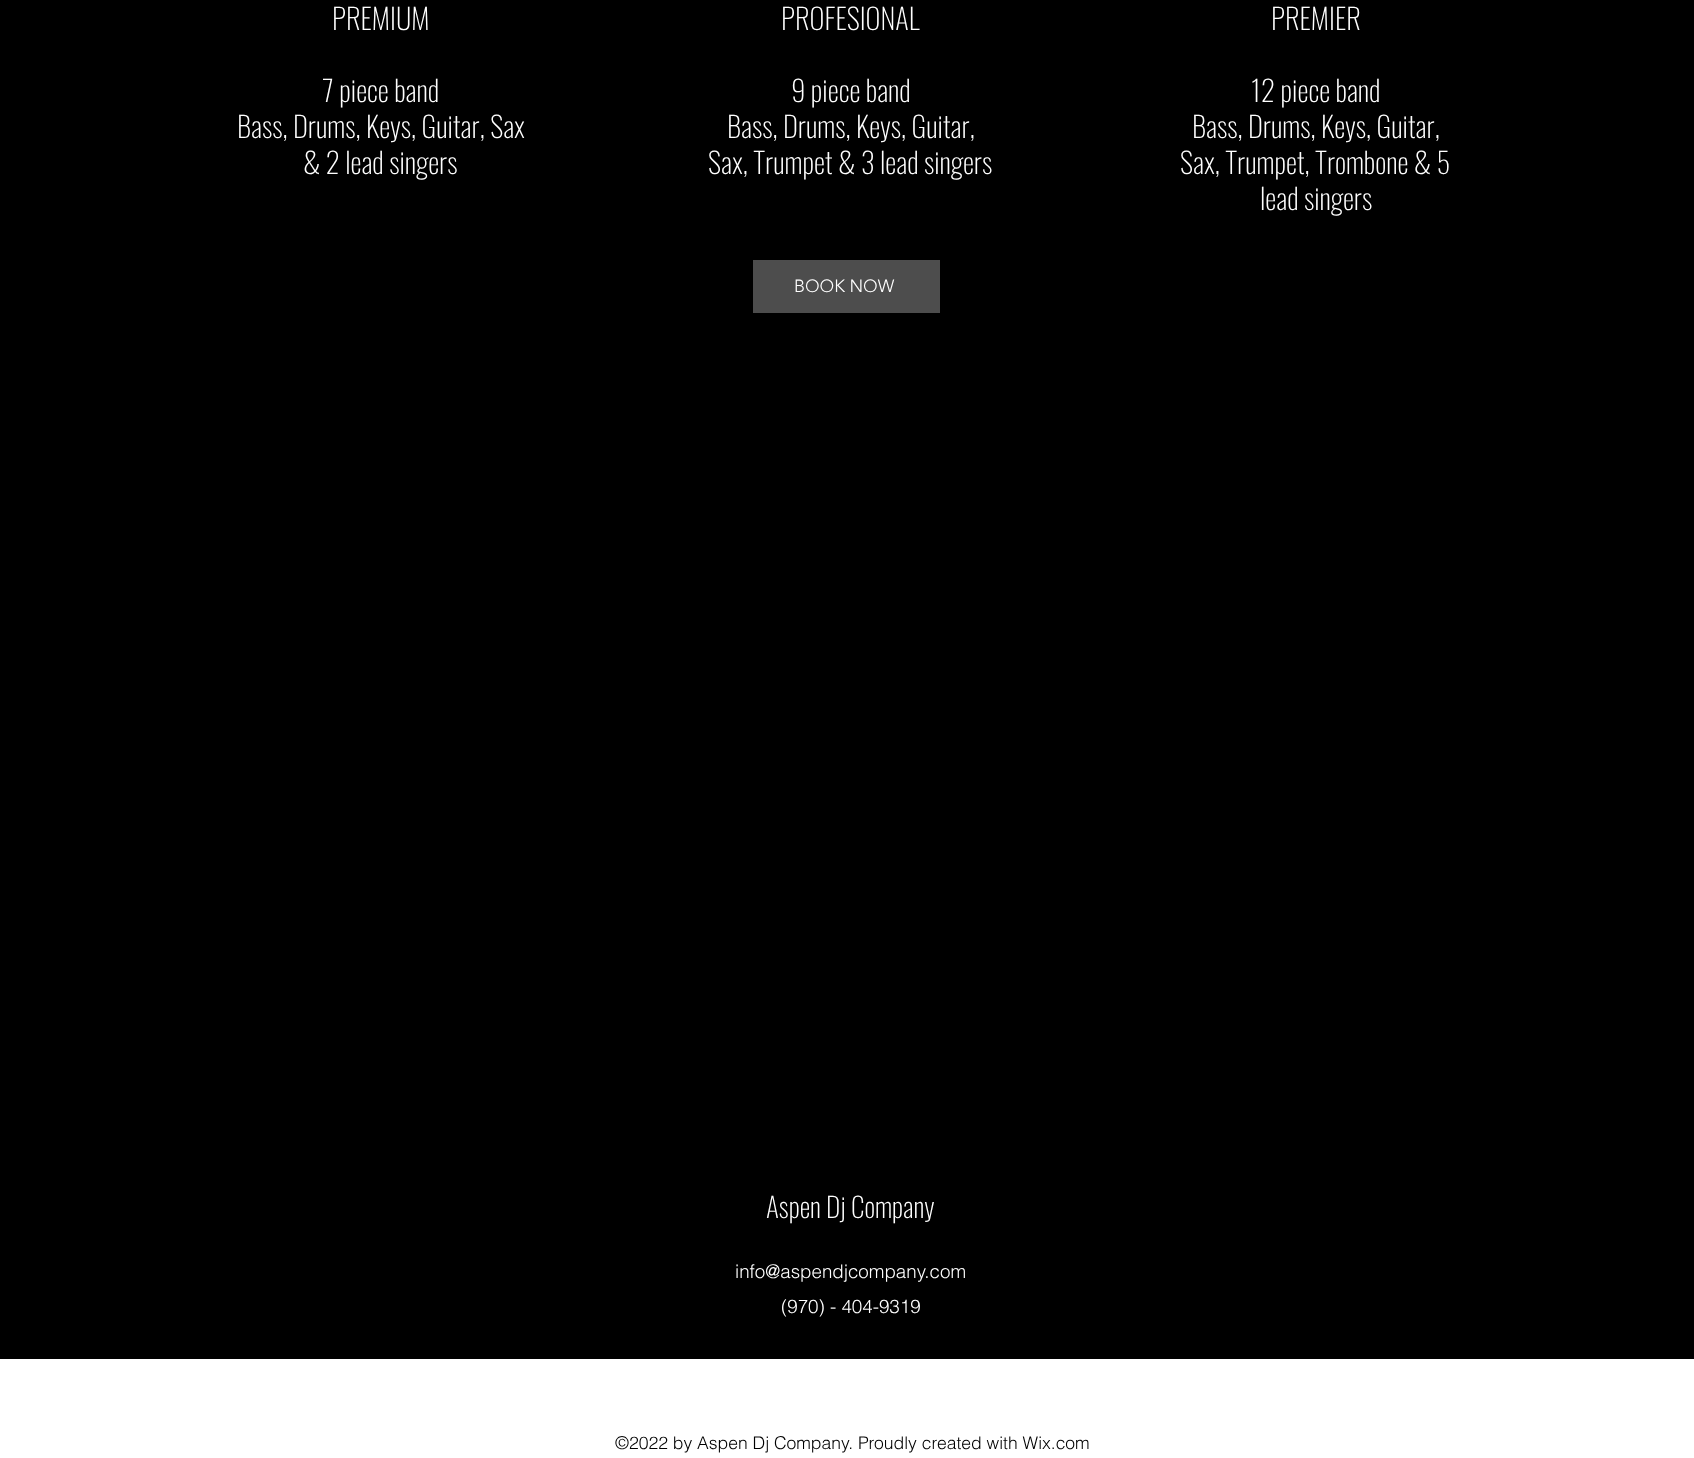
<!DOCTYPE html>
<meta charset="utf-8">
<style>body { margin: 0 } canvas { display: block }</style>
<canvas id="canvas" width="1694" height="1458"></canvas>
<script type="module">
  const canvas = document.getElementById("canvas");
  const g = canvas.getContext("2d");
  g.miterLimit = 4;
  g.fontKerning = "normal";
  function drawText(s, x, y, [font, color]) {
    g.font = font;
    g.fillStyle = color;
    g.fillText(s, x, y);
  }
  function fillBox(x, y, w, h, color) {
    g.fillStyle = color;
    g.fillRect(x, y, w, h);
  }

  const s1 = ["200 28.75px Oswald", "#FFFFFF"];
  const s2 = ["300 17.5px 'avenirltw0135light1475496'", "#FFFFFF"];
  const s3 = ["200 27.5px Oswald", "#FFFFFF"];
  const s4 = ["300 18.75px helvetica", "#FFFFFF"];
  const s5 = ["300 17.5px helvetica", "#000000"];

  fillBox(0, 0, 1694, 1458, "#FFFFFF");
  fillBox(0, 0, 1694, 1359, "#000000");
  drawText("PREMIUM", 332, 30, s1);
  drawText("7 piece band", 322, 102, s1);
  drawText("Bass, Drums, Keys, Guitar, Sax", 237, 138, s1);
  drawText("& 2 lead singers", 303, 174, s1);
  drawText("PROFESIONAL", 781, 30, s1);
  drawText("9 piece band", 791, 102, s1);
  drawText("Bass, Drums, Keys, Guitar,", 727, 138, s1);
  drawText("Sax, Trumpet & 3 lead singers", 708, 174, s1);
  drawText("PREMIER", 1271, 30, s1);
  drawText("12 piece band", 1251, 102, s1);
  drawText("Bass, Drums, Keys, Guitar,", 1192, 138, s1);
  drawText("Sax, Trumpet, Trombone & 5", 1180, 174, s1);
  drawText("lead singers", 1260, 210, s1);
  fillBox(753, 260, 187, 53, "#4D4D4D");
  drawText("BOOK NOW", 794, 292, s2);
  drawText("Aspen Dj Company", 766, 1218, s3);
  drawText("info@aspendjcompany.com", 735, 1278, s4);
  drawText("(970) - 404-9319", 781, 1313, s4);
  drawText("©2022 by Aspen Dj Company. Proudly created with Wix.com", 615, 1449, s5);
</script>
